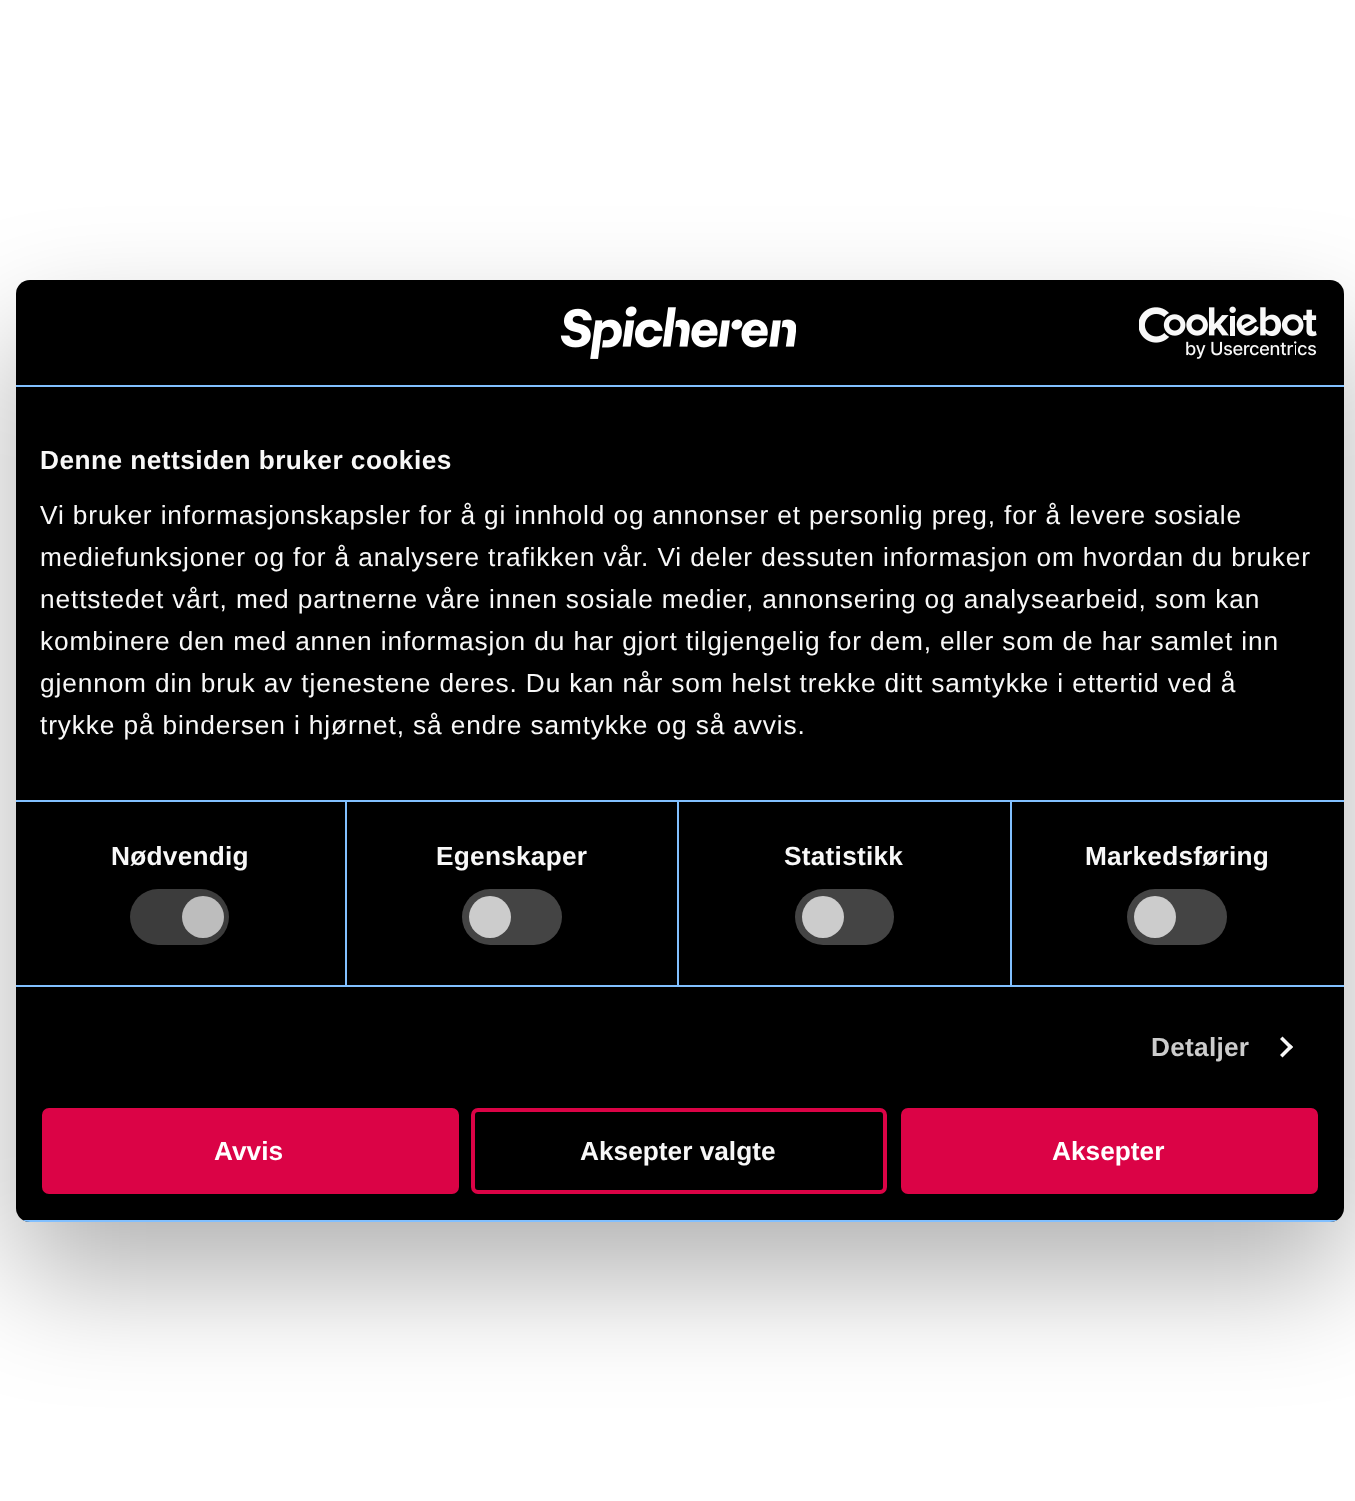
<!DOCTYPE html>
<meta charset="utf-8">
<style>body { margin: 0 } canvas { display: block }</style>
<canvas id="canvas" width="1355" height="1501"></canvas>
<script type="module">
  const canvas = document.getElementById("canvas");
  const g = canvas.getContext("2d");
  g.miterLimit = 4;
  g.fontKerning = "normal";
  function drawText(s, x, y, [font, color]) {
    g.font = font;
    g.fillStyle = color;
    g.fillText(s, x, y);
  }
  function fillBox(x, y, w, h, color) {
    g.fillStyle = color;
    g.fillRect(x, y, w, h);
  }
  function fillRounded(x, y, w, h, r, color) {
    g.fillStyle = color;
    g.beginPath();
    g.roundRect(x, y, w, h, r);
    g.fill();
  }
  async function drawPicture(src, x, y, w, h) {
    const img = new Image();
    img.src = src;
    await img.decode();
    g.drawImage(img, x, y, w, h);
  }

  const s1 = ["bold 26.25px Liberation Sans", "#F8F8F8"];
  const s2 = ["26.25px Liberation Sans", "#F8F8F8"];
  const s3 = ["bold 26.25px Liberation Sans", "#CCCCCC"];
  const s4 = ["bold 26.25px Liberation Sans", "#FFFFFF"];

  fillBox(0, 0, 1355, 1501, "#FFFFFF");
  g.fillStyle = "rgba(0, 0, 0, 0.3)";
  g.filter = "blur(59.5px)";
  g.beginPath();
  g.roundRect(16, 336, 1328, 942, 14);
  g.fill();
  g.filter = "none";
  fillRounded(16, 280, 1328, 942, 14, "#000000");
  fillBox(16, 385, 1328, 2, "#82C0FF");
  await drawPicture("pic1.png", 560, 306, 236, 53);
  await drawPicture("pic2.png", 1139, 306, 178, 53);
  fillBox(16, 800, 1328, 2, "#82C0FF");
  g.letterSpacing = "0.45px";
  drawText("Denne nettsiden bruker cookies", 40, 469, s1);
  g.letterSpacing = "0.88px";
  drawText("Vi bruker informasjonskapsler for å gi innhold og annonser et personlig preg, for å levere sosiale", 40, 524, s2);
  drawText("mediefunksjoner og for å analysere trafikken vår. Vi deler dessuten informasjon om hvordan du bruker", 40, 566, s2);
  drawText("nettstedet vårt, med partnerne våre innen sosiale medier, annonsering og analysearbeid, som kan", 40, 608, s2);
  drawText("kombinere den med annen informasjon du har gjort tilgjengelig for dem, eller som de har samlet inn", 40, 650, s2);
  drawText("gjennom din bruk av tjenestene deres. Du kan når som helst trekke ditt samtykke i ettertid ved å", 40, 692, s2);
  drawText("trykke på bindersen i hjørnet, så endre samtykke og så avvis.", 40, 734, s2);
  fillBox(16, 985, 1328, 2, "#82C0FF");
  fillBox(345, 802, 2, 183, "#82C0FF");
  g.letterSpacing = "0.25px";
  drawText("Nødvendig", 111, 865, s1);
  fillRounded(130, 889, 99, 56, 28, "#3C3C3C");
  g.fillStyle = "#BDBDBD";
  g.beginPath();
  g.arc(203, 917, 21, 0, Math.PI * 2);
  g.fill();
  fillBox(677, 802, 2, 183, "#82C0FF");
  drawText("Egenskaper", 436, 865, s1);
  fillRounded(462, 889, 100, 56, 28, "#444444");
  g.fillStyle = "#CCCCCC";
  g.beginPath();
  g.arc(490, 917, 21, 0, Math.PI * 2);
  g.fill();
  fillBox(1010, 802, 2, 183, "#82C0FF");
  drawText("Statistikk", 784, 865, s1);
  fillRounded(795, 889, 99, 56, 28, "#444444");
  g.fillStyle = "#CCCCCC";
  g.beginPath();
  g.arc(823, 917, 21, 0, Math.PI * 2);
  g.fill();
  drawText("Markedsføring", 1085, 865, s1);
  fillRounded(1127, 889, 100, 56, 28, "#444444");
  g.fillStyle = "#CCCCCC";
  g.beginPath();
  g.arc(1155, 917, 21, 0, Math.PI * 2);
  g.fill();
  drawText("Detaljer", 1151, 1056, s3);
  g.fillStyle = "#F8F8F8";
  g.beginPath();
  g.moveTo(1282.5, 1036.5);
  g.lineTo(1293, 1047);
  g.lineTo(1290.5, 1049.5);
  g.lineTo(1280, 1039);
  g.closePath();
  g.fill();
  g.beginPath();
  g.moveTo(1290.5, 1044.5);
  g.lineTo(1293, 1047);
  g.lineTo(1282.5, 1057.5);
  g.lineTo(1280, 1055);
  g.closePath();
  g.fill();
  g.save();
  g.beginPath();
  g.roundRect(16, 280, 1328, 942, 14);
  g.clip();
  fillBox(16, 1220, 1328, 2, "#82C0FF");
  g.restore();
  g.fillStyle = "#DB0346";
  g.beginPath();
  g.roundRect(44, 1110, 413, 82, 5);
  g.fill();
  g.strokeStyle = "#DB0346";
  g.lineWidth = 4;
  g.stroke();
  g.letterSpacing = "0px";
  drawText("Avvis", 214, 1160, s4);
  g.beginPath();
  g.roundRect(473, 1110, 412, 82, 5);
  g.stroke();
  drawText("Aksepter valgte", 580, 1160, s1);
  g.fillStyle = "#DB0346";
  g.beginPath();
  g.roundRect(903, 1110, 413, 82, 5);
  g.fill();
  g.stroke();
  drawText("Aksepter", 1052, 1160, s4);
</script>
